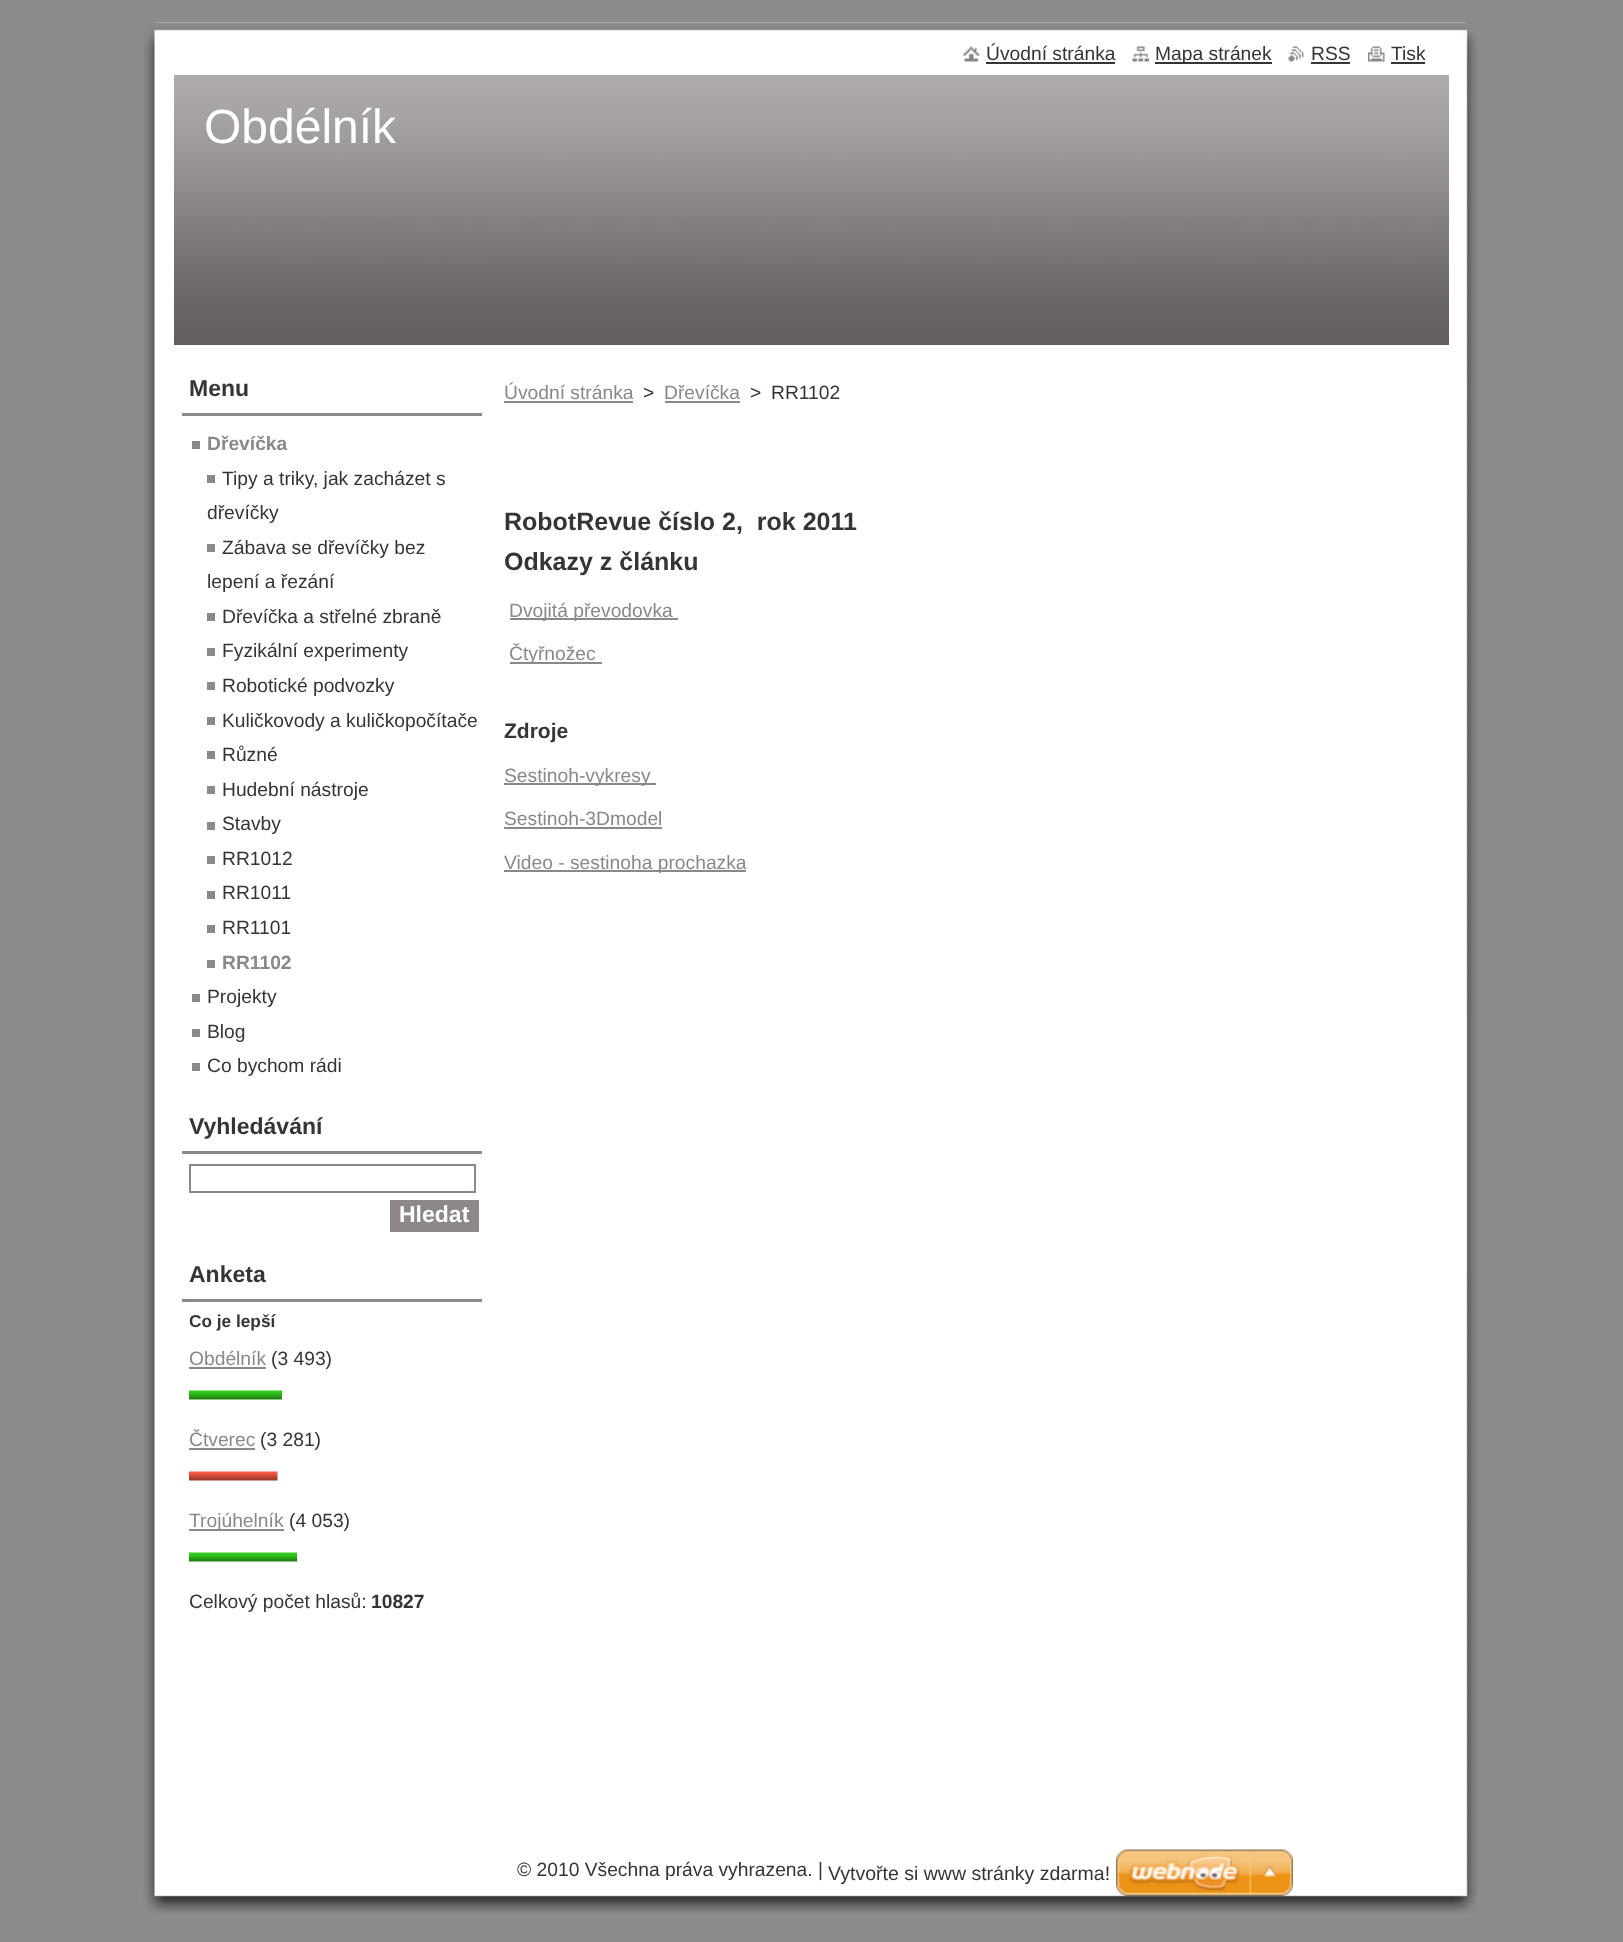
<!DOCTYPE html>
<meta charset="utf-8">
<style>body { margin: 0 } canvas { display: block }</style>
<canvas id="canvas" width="1623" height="1942"></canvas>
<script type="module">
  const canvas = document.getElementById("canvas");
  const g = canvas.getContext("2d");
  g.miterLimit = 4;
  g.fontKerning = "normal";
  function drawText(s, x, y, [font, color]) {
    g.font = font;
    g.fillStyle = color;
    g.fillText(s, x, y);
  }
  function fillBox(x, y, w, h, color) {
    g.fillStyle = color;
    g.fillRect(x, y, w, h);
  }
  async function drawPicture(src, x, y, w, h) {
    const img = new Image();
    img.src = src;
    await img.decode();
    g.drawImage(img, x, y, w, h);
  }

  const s1 = ["19.25px Liberation Sans", "#353535"];
  const s2 = ["48px Liberation Sans", "#FFFFFF"];
  const s3 = ["bold 23px Liberation Sans", "#353535"];
  const s4 = ["bold 19.25px Liberation Sans", "#8D8787"];
  const s5 = ["bold 23px Liberation Sans", "#FFFFFF"];
  const s6 = ["bold 17.25px Liberation Sans", "#353535"];
  const s7 = ["19.25px Liberation Sans", "#8D8787"];
  const s8 = ["bold 19.25px Liberation Sans", "#353535"];
  const s9 = ["bold 25px Liberation Sans", "#353535"];
  const s10 = ["bold 21px Liberation Sans", "#353535"];
  const s11 = ["19.5px Liberation Sans", "#353535"];

  fillBox(0, 0, 1623, 1942, "#8C8C8C");
  await drawPicture("pic1.png", 144, 22, 1334, 1864);
  await drawPicture("pic2.png", 144, 22, 1334, 27);
  await drawPicture("pic3.png", 963, 46, 17, 16);
  drawText("Úvodní stránka", 986, 60, s1);
  fillBox(986, 62, 129, 2, "#353535");
  await drawPicture("pic4.png", 1132, 46, 17, 16);
  fillBox(1155, 62, 117, 2, "#353535");
  drawText("Mapa stránek", 1155, 60, s1);
  await drawPicture("pic5.png", 1288, 46, 16, 16);
  drawText("RSS", 1311, 60, s1);
  fillBox(1311, 62, 39, 2, "#353535");
  await drawPicture("pic6.png", 1368, 46, 17, 16);
  drawText("Tisk", 1391, 60, s1);
  fillBox(1391, 62, 34, 2, "#353535");
  await drawPicture("pic7.png", 174, 75, 1275, 270);
  drawText("Obdélník", 204, 143, s2);
  fillBox(182, 413, 300, 3, "#8D8787");
  drawText("Menu", 189, 396, s3);
  drawText("Dřevíčka", 207, 450, s4);
  fillBox(192, 441, 8, 8, "#8D8787");
  drawText("Tipy a triky, jak zacházet s", 222, 485, s1);
  fillBox(207, 475, 8, 8, "#8D8787");
  drawText("dřevíčky", 207, 519, s1);
  drawText("Zábava se dřevíčky bez", 222, 554, s1);
  fillBox(207, 544, 8, 8, "#8D8787");
  drawText("lepení a řezání", 207, 588, s1);
  drawText("Dřevíčka a střelné zbraně", 222, 623, s1);
  fillBox(207, 613, 8, 8, "#8D8787");
  drawText("Fyzikální experimenty", 222, 657, s1);
  fillBox(207, 648, 8, 8, "#8D8787");
  drawText("Robotické podvozky", 222, 692, s1);
  fillBox(207, 682, 8, 8, "#8D8787");
  drawText("Kuličkovody a kuličkopočítače", 222, 727, s1);
  fillBox(207, 717, 8, 8, "#8D8787");
  drawText("Různé", 222, 761, s1);
  fillBox(207, 751, 8, 8, "#8D8787");
  drawText("Hudební nástroje", 222, 796, s1);
  fillBox(207, 786, 8, 8, "#8D8787");
  drawText("Stavby", 222, 830, s1);
  fillBox(207, 822, 8, 8, "#8D8787");
  drawText("RR1012", 222, 865, s1);
  fillBox(207, 856, 8, 8, "#8D8787");
  drawText("RR1011", 222, 899, s1);
  fillBox(207, 891, 8, 8, "#8D8787");
  drawText("RR1101", 222, 934, s1);
  fillBox(207, 925, 8, 8, "#8D8787");
  drawText("RR1102", 222, 969, s4);
  fillBox(207, 960, 8, 8, "#8D8787");
  drawText("Projekty", 207, 1003, s1);
  fillBox(192, 994, 8, 8, "#8D8787");
  drawText("Blog", 207, 1038, s1);
  fillBox(192, 1029, 8, 8, "#8D8787");
  drawText("Co bychom rádi", 207, 1072, s1);
  fillBox(192, 1063, 8, 8, "#8D8787");
  fillBox(182, 1151, 300, 3, "#8D8787");
  drawText("Vyhledávání", 189, 1134, s3);
  g.strokeStyle = "#8D8787";
  g.lineWidth = 2;
  g.strokeRect(190, 1165, 285, 27);
  fillBox(390, 1200, 89, 32, "#8D8787");
  drawText("Hledat", 399, 1222, s5);
  fillBox(182, 1299, 300, 3, "#8D8787");
  drawText("Anketa", 189, 1282, s3);
  drawText("Co je lepší", 189, 1327, s6);
  drawText("Obdélník", 189, 1365, s7);
  fillBox(189, 1367, 77, 2, "#8D8787");
  drawText("(3 493)", 271, 1365, s1);
  await drawPicture("pic8.png", 189, 1390, 93, 10);
  drawText("Čtverec", 189, 1446, s7);
  fillBox(189, 1448, 66, 2, "#8D8787");
  drawText("(3 281)", 260, 1446, s1);
  await drawPicture("pic9.png", 189, 1471, 89, 10);
  fillBox(189, 1529, 95, 2, "#8D8787");
  drawText("Trojúhelník", 189, 1527, s7);
  drawText("(4 053)", 289, 1527, s1);
  await drawPicture("pic10.png", 189, 1552, 108, 10);
  drawText("Celkový počet hlasů:", 189, 1608, s1);
  drawText("10827", 371, 1608, s8);
  drawText("Úvodní stránka", 504, 399, s7);
  fillBox(504, 401, 129, 2, "#8D8787");
  drawText(">", 643, 399, s1);
  drawText("Dřevíčka", 664, 399, s7);
  fillBox(665, 401, 75, 2, "#8D8787");
  drawText(">", 750, 399, s1);
  drawText("RR1102", 771, 399, s1);
  drawText("RobotRevue číslo 2,  rok 2011", 504, 530, s9);
  drawText("Odkazy z článku", 504, 570, s9);
  fillBox(510, 618, 168, 2, "#8D8787");
  drawText("Dvojitá převodovka", 509, 617, s7);
  fillBox(510, 662, 92, 2, "#8D8787");
  drawText("Čtyřnožec", 509, 660, s7);
  drawText("Zdroje", 504, 738, s10);
  fillBox(504, 783, 152, 2, "#8D8787");
  drawText("Sestinoh-vykresy", 504, 782, s7);
  drawText("Sestinoh-3Dmodel", 504, 825, s7);
  fillBox(504, 827, 158, 2, "#8D8787");
  fillBox(504, 870, 242, 2, "#8D8787");
  drawText("Video - sestinoha prochazka", 504, 869, s7);
  await drawPicture("pic11.png", 143, 1886, 1335, 28);
  drawText("© 2010 Všechna práva vyhrazena. |", 517, 1876, s1);
  drawText("Vytvořte si www stránky zdarma!", 828, 1880, s11);
  await drawPicture("pic12.png", 1116, 1849, 177, 47);
</script>
